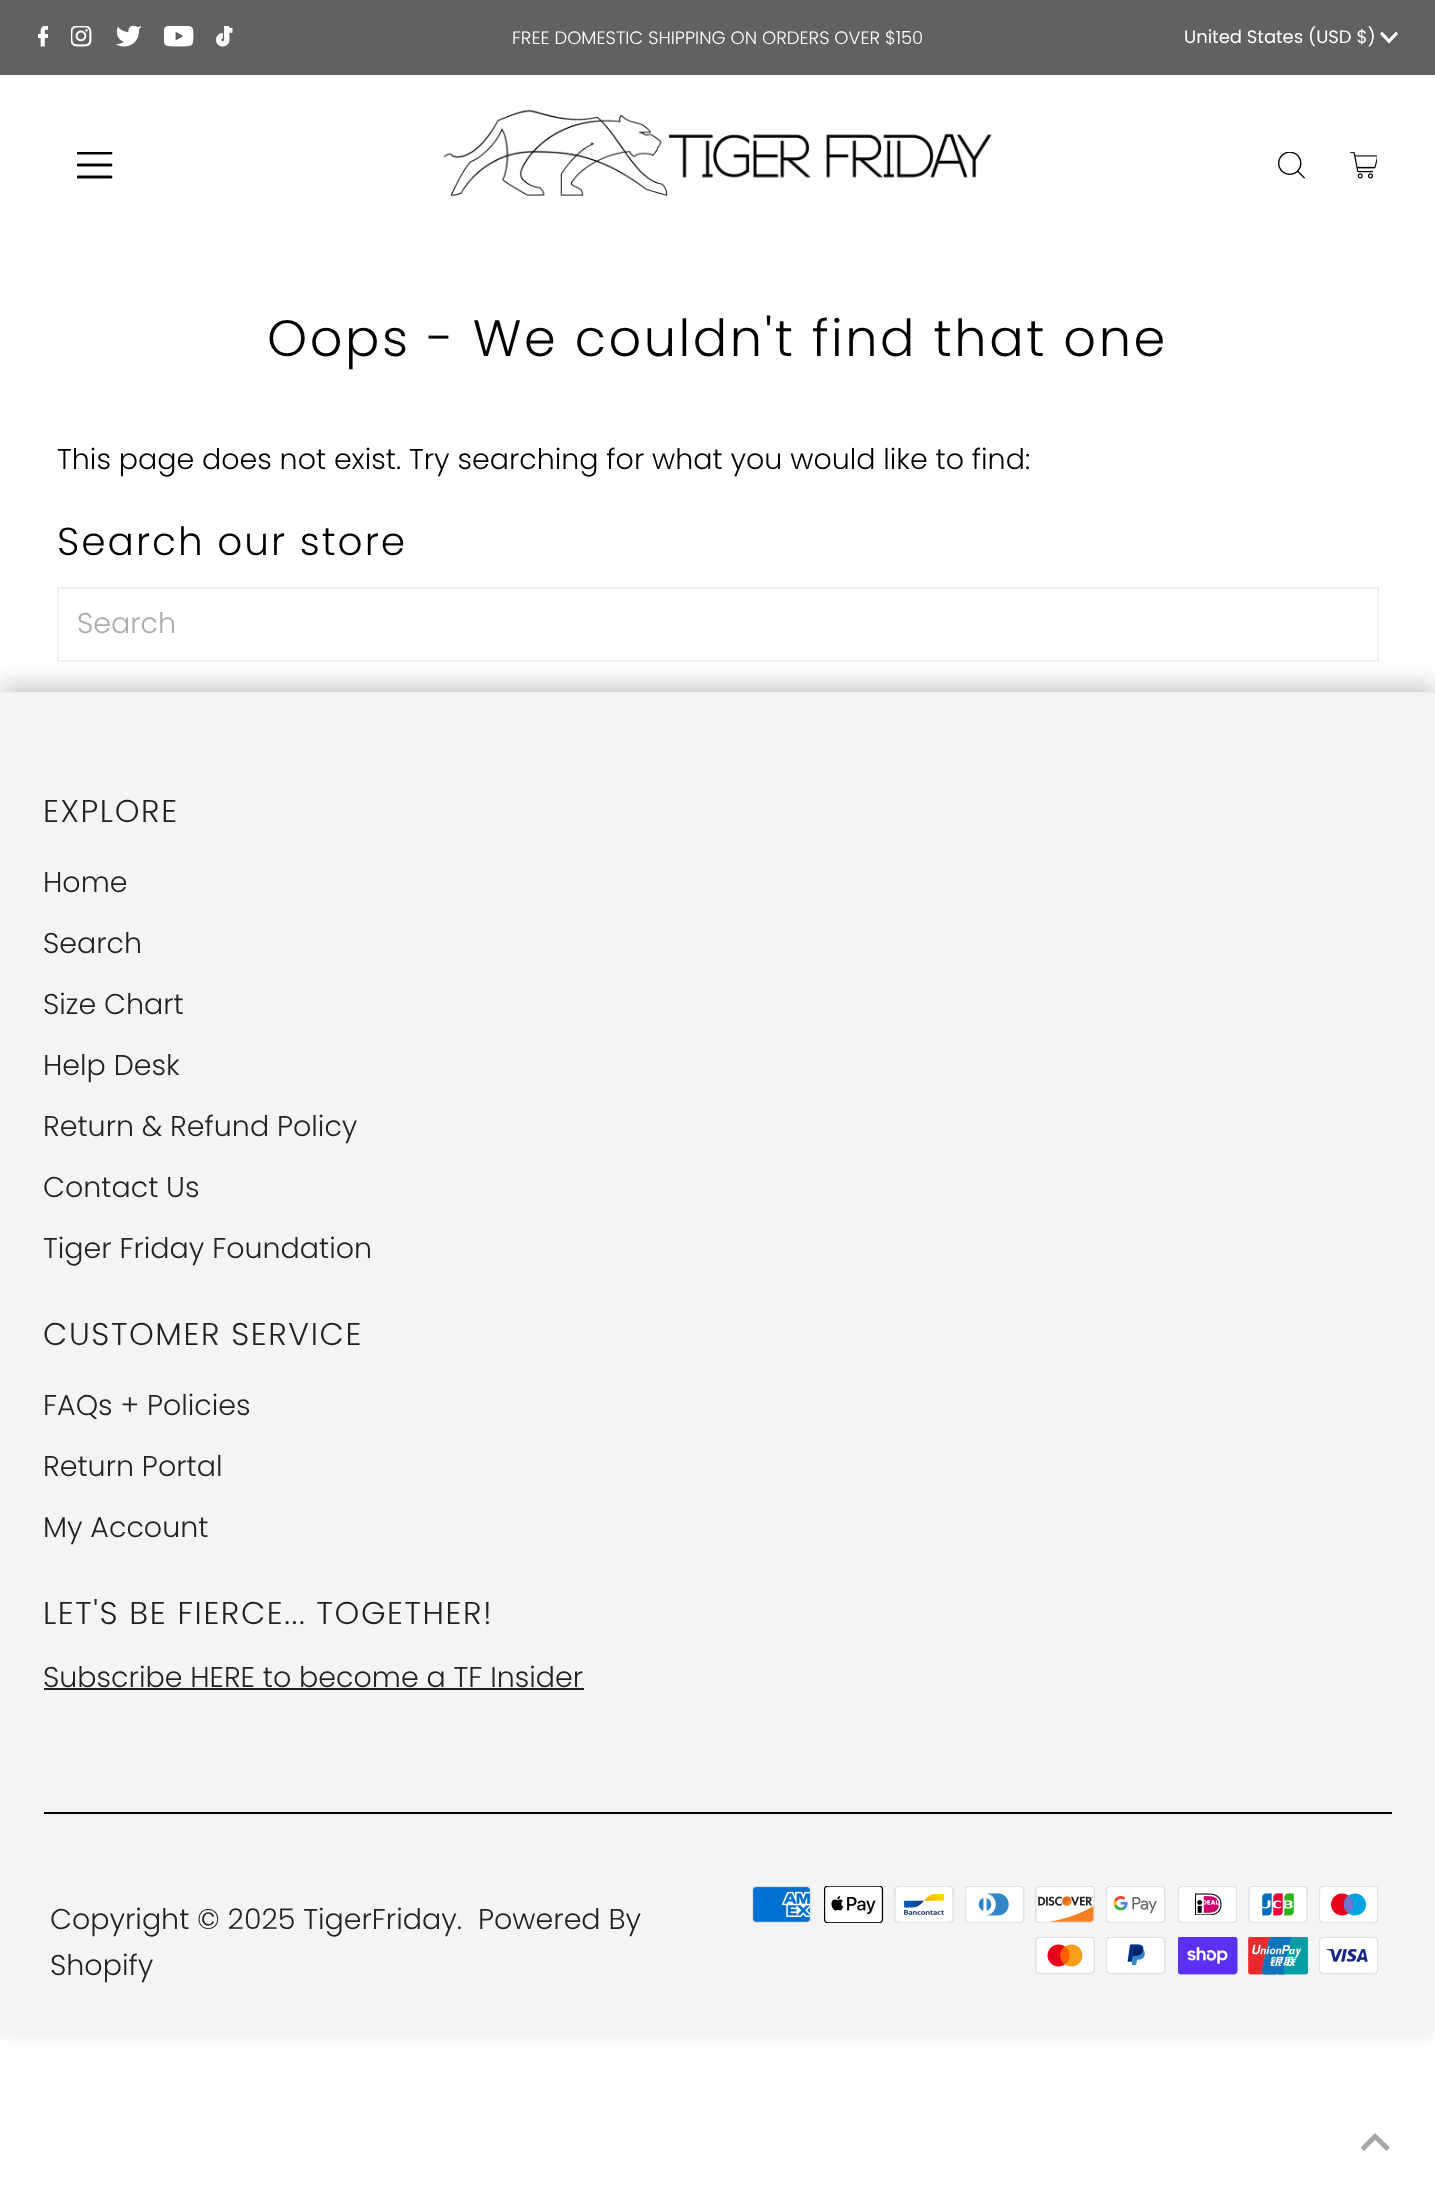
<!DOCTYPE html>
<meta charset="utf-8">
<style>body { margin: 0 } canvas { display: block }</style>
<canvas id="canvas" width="1435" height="2201"></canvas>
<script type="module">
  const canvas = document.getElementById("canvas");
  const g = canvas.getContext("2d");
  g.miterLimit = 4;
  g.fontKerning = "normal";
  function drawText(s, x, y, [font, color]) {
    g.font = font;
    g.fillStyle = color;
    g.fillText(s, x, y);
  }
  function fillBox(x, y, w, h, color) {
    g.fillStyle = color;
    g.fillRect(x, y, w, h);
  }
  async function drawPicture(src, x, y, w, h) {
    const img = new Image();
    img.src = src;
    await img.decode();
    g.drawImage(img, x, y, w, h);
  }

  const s1 = ["300 18px Poppins", "#FFFFFF"];
  const s2 = ["18px Poppins", "#FFFFFF"];
  const s3 = ["300 51px Poppins", "#000000"];
  const s4 = ["300 28.5px Poppins", "#000000"];
  const s5 = ["300 39px Poppins", "#000000"];
  const s6 = ["300 28.5px Poppins", "#AAAAAA"];
  const s7 = ["300 31.5px Poppins", "#222222"];
  const s8 = ["300 28.5px Poppins", "#222222"];

  fillBox(0, 0, 1435, 2201, "#FFFFFF");
  fillBox(0, 0, 1435, 75, "#616161");
  await drawPicture("pic1.png", 38, 26, 10, 21);
  await drawPicture("pic2.png", 71, 26, 21, 21);
  await drawPicture("pic3.png", 116, 26, 25, 21);
  await drawPicture("pic4.png", 164, 26, 30, 21);
  await drawPicture("pic5.png", 216, 26, 17, 21);
  drawText("FREE DOMESTIC SHIPPING ON ORDERS OVER $150", 512, 44, s1);
  drawText("United States (USD $)", 1184, 43, s2);
  g.save();
  g.beginPath();
  g.rect(1380, 32, 18, 12);
  g.clip();
  g.beginPath();
  g.moveTo(1396, 31.5);
  g.lineTo(1389, 39);
  g.lineTo(1382, 31.5);
  g.lineTo(1380, 34);
  g.lineTo(1389, 43.5);
  g.lineTo(1398, 34);
  g.closePath();
  g.fill();
  g.restore();
  await drawPicture("pic6.png", 77, 152, 36, 27);
  await drawPicture("pic7.png", 443, 109, 549, 87);
  await drawPicture("pic8.png", 1278, 152, 27, 27);
  await drawPicture("pic9.png", 1350, 152, 27, 27);
  g.letterSpacing = "2.55px";
  drawText("Oops - We couldn't find that one", 267, 356, s3);
  g.letterSpacing = "0px";
  drawText("This page does not exist. Try searching for what you would like to find:", 57, 469, s4);
  g.letterSpacing = "2px";
  drawText("Search our store", 57, 555, s5);
  g.fillStyle = "rgba(0, 0, 0, 0.2)";
  g.filter = "blur(11px)";
  g.beginPath();
  g.rect(0, 684, 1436, 1343);
  g.fill();
  g.filter = "none";
  g.strokeStyle = "#F0F0F0";
  g.lineWidth = 2;
  g.strokeRect(58, 588, 1320, 73);
  g.letterSpacing = "0px";
  drawText("Search", 77, 633, s6);
  fillBox(0, 694, 1435, 1340, "#F4F4F4");
  fillBox(0, 692, 1435, 2, "#F0F0F0");
  g.letterSpacing = "1.6px";
  drawText("EXPLORE", 43, 822, s7);
  g.letterSpacing = "0px";
  drawText("Home", 43, 892, s8);
  drawText("Search", 43, 953, s8);
  drawText("Size Chart", 43, 1014, s8);
  drawText("Help Desk", 43, 1075, s8);
  drawText("Return & Refund Policy", 43, 1136, s8);
  drawText("Contact Us", 43, 1197, s8);
  drawText("Tiger Friday Foundation", 43, 1258, s8);
  g.letterSpacing = "1.6px";
  drawText("CUSTOMER SERVICE", 43, 1345, s7);
  g.letterSpacing = "0px";
  drawText("FAQs + Policies", 43, 1415, s8);
  drawText("Return Portal", 43, 1476, s8);
  drawText("My Account", 43, 1537, s8);
  g.letterSpacing = "1.6px";
  drawText("LET'S BE FIERCE... TOGETHER!", 43, 1624, s7);
  g.letterSpacing = "0px";
  drawText("Subscribe HERE to become a TF Insider", 43, 1687, s8);
  fillBox(44, 1688, 540, 2, "#222222");
  fillBox(44, 1812, 1348, 2, "#000000");
  drawText("Copyright © 2025 TigerFriday.", 50, 1929, s8);
  drawText("Powered By", 478, 1929, s8);
  drawText("Shopify", 50, 1975, s8);
  await drawPicture("pic10.png", 752, 1886, 60, 37);
  await drawPicture("pic11.png", 824, 1886, 60, 37);
  await drawPicture("pic12.png", 894, 1886, 60, 37);
  await drawPicture("pic13.png", 965, 1886, 60, 37);
  await drawPicture("pic14.png", 1035, 1886, 60, 37);
  await drawPicture("pic15.png", 1106, 1886, 60, 37);
  await drawPicture("pic16.png", 1178, 1886, 59, 37);
  await drawPicture("pic17.png", 1248, 1886, 60, 37);
  await drawPicture("pic18.png", 1319, 1886, 60, 37);
  await drawPicture("pic19.png", 1035, 1937, 60, 38);
  await drawPicture("pic20.png", 1106, 1937, 60, 38);
  await drawPicture("pic21.png", 1178, 1937, 60, 38);
  await drawPicture("pic22.png", 1248, 1937, 60, 38);
  await drawPicture("pic23.png", 1319, 1937, 60, 38);
  g.fillStyle = "#A7A7A7";
  g.beginPath();
  g.moveTo(1375, 2133);
  g.lineTo(1360.5, 2147.5);
  g.lineTo(1364, 2151);
  g.lineTo(1375, 2140);
  g.lineTo(1386.5, 2151);
  g.lineTo(1390, 2147.5);
  g.closePath();
  g.fill();
</script>
